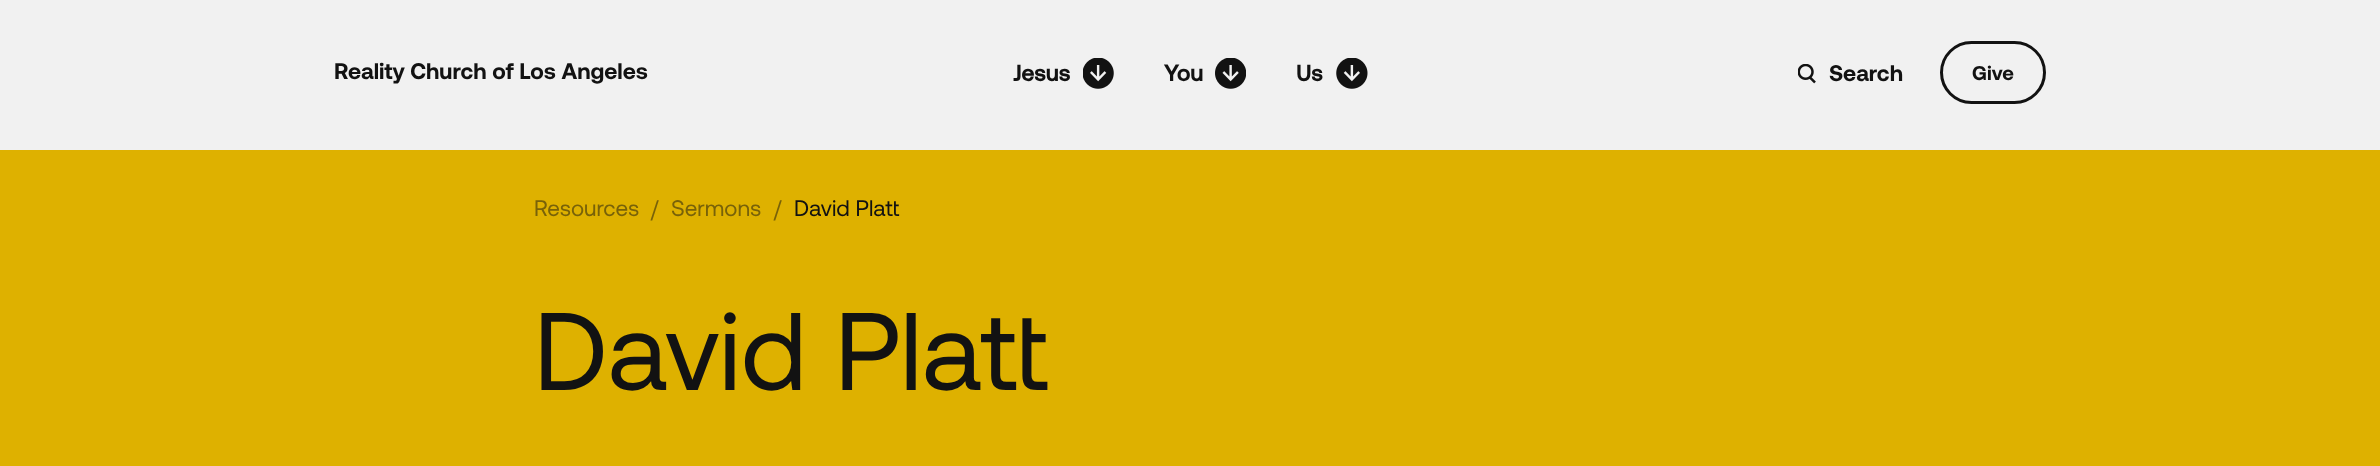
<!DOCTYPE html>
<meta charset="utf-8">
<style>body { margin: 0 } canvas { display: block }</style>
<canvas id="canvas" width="2380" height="466"></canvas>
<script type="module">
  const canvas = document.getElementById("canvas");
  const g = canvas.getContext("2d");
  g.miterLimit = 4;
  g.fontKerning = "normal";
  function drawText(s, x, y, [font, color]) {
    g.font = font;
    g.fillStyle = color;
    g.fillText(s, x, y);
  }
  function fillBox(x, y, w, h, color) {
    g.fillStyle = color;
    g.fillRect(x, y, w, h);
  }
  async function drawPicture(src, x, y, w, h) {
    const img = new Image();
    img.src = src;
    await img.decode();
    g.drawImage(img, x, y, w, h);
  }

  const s1 = ["bold 22.5px 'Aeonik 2'", "#121212"];
  const s2 = ["bold 22.5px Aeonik", "#121212"];
  const s3 = ["bold 20px 'Aeonik 2'", "#121212"];
  const s4 = ["22.5px Aeonik", "#786209"];
  const s5 = ["22.5px Aeonik", "#121212"];
  const s6 = ["110px Aeonik", "#121212"];

  fillBox(0, 0, 2380, 466, "#F1F1F1");
  drawText("Reality Church of Los Angeles", 334, 79, s1);
  drawText("Jesus", 1013, 81, s2);
  await drawPicture("pic1.png", 1083, 58, 31, 31);
  drawText("You", 1164, 81, s2);
  await drawPicture("pic2.png", 1215, 58, 31, 31);
  drawText("Us", 1296, 81, s2);
  await drawPicture("pic3.png", 1336, 58, 32, 31);
  await drawPicture("pic4.png", 1798, 64, 18, 20);
  drawText("Search", 1829, 81, s1);
  g.beginPath();
  g.roundRect(1941.5, 42.5, 103, 60, 30);
  g.strokeStyle = "#121212";
  g.lineWidth = 3;
  g.stroke();
  drawText("Give", 1972, 80, s3);
  fillBox(0, 150, 2380, 316, "#DEB100");
  drawText("Resources", 534, 216, s4);
  drawText("/", 651, 216, s4);
  drawText("Sermons", 671, 216, s4);
  drawText("/", 774, 216, s4);
  drawText("David Platt", 794, 216, s5);
  drawText("David Platt", 534, 390, s6);
</script>
